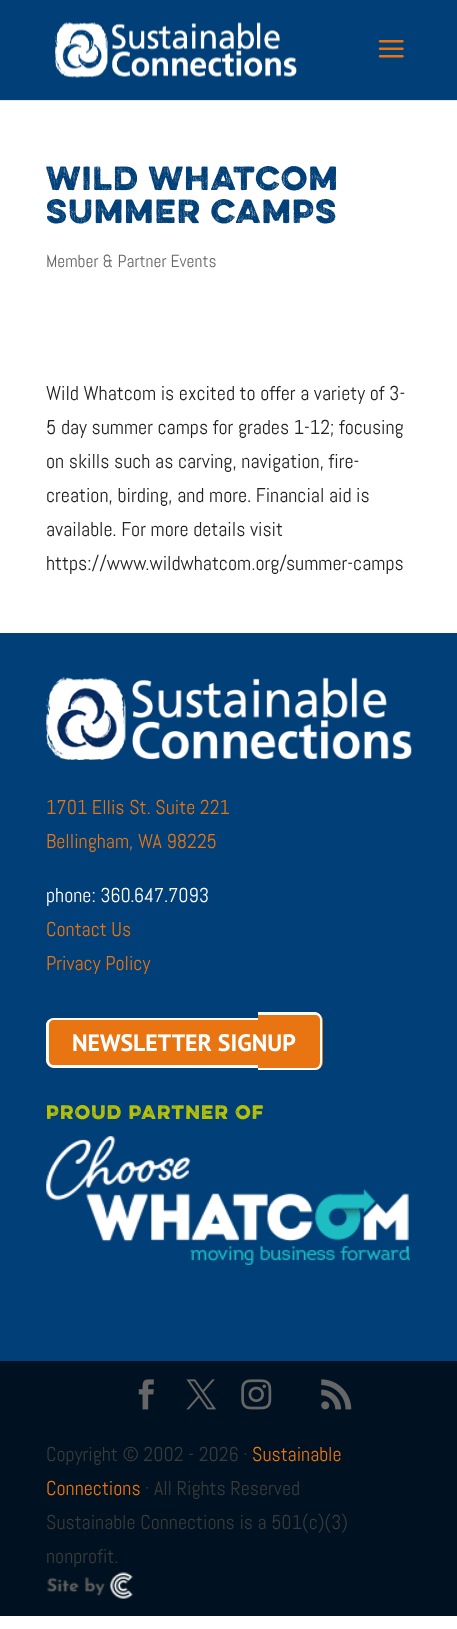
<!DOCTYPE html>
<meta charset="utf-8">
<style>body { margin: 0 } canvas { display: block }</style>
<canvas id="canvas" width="457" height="1629"></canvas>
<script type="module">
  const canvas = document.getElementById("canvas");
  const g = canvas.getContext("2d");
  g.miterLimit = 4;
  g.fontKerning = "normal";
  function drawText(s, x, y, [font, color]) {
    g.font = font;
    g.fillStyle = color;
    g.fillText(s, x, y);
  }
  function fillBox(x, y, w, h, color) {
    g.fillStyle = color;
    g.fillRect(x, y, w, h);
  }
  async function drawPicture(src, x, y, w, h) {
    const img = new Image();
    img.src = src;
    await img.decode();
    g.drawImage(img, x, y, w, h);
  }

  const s1 = ["bold 30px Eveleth", "#003F77"];
  const s2 = ["17.5px Abel", "#666666"];
  const s3 = ["20px Abel", "#212121"];
  const s4 = ["20px Abel", "#E87511"];
  const s5 = ["20px Abel", "#FFFFFF"];
  const s6 = ["bold 23.75px PT Sans", "#FFFFFF"];
  const s7 = ["bold 17.5px Eveleth", "#BAC405"];
  const s8 = ["20px Abel", "#3A3A3A"];

  fillBox(0, 0, 457, 1629, "#FFFFFF");
  g.fillStyle = "#E6E6E6";
  g.beginPath();
  g.moveTo(0, 100);
  g.lineTo(0, 101);
  g.lineTo(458, 101);
  g.lineTo(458, 1);
  g.lineTo(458, 100);
  g.closePath();
  g.fill();
  fillBox(0, 0, 457, 100, "#003F77");
  await drawPicture("pic1.png", 55, 22, 242, 56);
  await drawPicture("pic2.png", 378, 40, 26, 18);
  g.letterSpacing = "1.25px";
  drawText("WILD WHATCOM", 46, 190, s1);
  drawText("SUMMER CAMPS", 46, 223, s1);
  g.letterSpacing = "0px";
  drawText("Member & Partner Events", 46, 267, s2);
  drawText("Wild Whatcom is excited to offer a variety of 3-", 46, 400, s3);
  drawText("5 day summer camps for grades 1-12; focusing", 46, 434, s3);
  drawText("on skills such as carving, navigation, fire-", 46, 468, s3);
  drawText("creation, birding, and more. Financial aid is", 46, 502, s3);
  drawText("available. For more details visit", 46, 536, s3);
  drawText("https://www.wildwhatcom.org/summer-camps", 46, 570, s3);
  fillBox(0, 633, 457, 728, "#003F77");
  await drawPicture("pic3.png", 46, 677, 366, 83);
  drawText("1701 Ellis St. Suite 221", 46, 814, s4);
  drawText("Bellingham, WA 98225", 46, 848, s4);
  drawText("phone: 360.647.7093", 46, 902, s5);
  drawText("Contact Us", 46, 936, s4);
  drawText("Privacy Policy", 46, 970, s4);
  g.beginPath();
  g.roundRect(46, 1018, 250, 50, [8, 0, 0, 8]);
  g.fill();
  g.fillStyle = "rgba(255, 255, 255, 0.99)";
  g.beginPath();
  g.moveTo(54, 1018);
  g.lineTo(296, 1018);
  g.lineTo(296, 1068);
  g.lineTo(54, 1068);
  g.bezierCurveTo(50, 1068, 46, 1064, 46, 1060);
  g.lineTo(46, 1025);
  g.bezierCurveTo(46, 1021, 50, 1018, 54, 1018);
  g.closePath();
  g.moveTo(54, 1020);
  g.lineTo(296, 1020);
  g.lineTo(296, 1065);
  g.lineTo(54, 1065);
  g.bezierCurveTo(51, 1065, 49, 1063, 49, 1060);
  g.lineTo(49, 1025);
  g.bezierCurveTo(49, 1022, 51, 1020, 54, 1020);
  g.closePath();
  g.fill("evenodd");
  g.fillStyle = "#E87511";
  g.beginPath();
  g.roundRect(258, 1013, 65, 57, [0, 8, 8, 0]);
  g.fill();
  g.fillStyle = "rgba(255, 255, 255, 0.99)";
  g.beginPath();
  g.moveTo(258, 1012);
  g.lineTo(315, 1012);
  g.bezierCurveTo(319, 1012, 322, 1016, 322, 1020);
  g.lineTo(322, 1062);
  g.bezierCurveTo(322, 1067, 319, 1070, 315, 1070);
  g.lineTo(258, 1070);
  g.closePath();
  g.moveTo(258, 1015);
  g.lineTo(315, 1015);
  g.bezierCurveTo(318, 1015, 320, 1017, 320, 1020);
  g.lineTo(320, 1062);
  g.bezierCurveTo(320, 1065, 318, 1068, 315, 1068);
  g.lineTo(258, 1068);
  g.closePath();
  g.fill("evenodd");
  drawText("NEWSLETTER SIGNUP", 72, 1051, s6);
  g.letterSpacing = "1.25px";
  drawText("PROUD PARTNER OF", 46, 1119, s7);
  await drawPicture("pic4.png", 46, 1136, 364, 129);
  fillBox(0, 1361, 457, 255, "#001221");
  await drawPicture("pic5.png", 138, 1379, 16, 31);
  await drawPicture("pic6.png", 186, 1379, 30, 31);
  await drawPicture("pic7.png", 241, 1379, 31, 31);
  await drawPicture("pic8.png", 321, 1379, 31, 31);
  g.letterSpacing = "0px";
  drawText("Copyright © 2002 - 2026 ·", 46, 1461, s8);
  drawText("Sustainable", 252, 1461, s4);
  drawText("Connections", 46, 1495, s4);
  drawText("· All Rights Reserved", 145, 1495, s8);
  drawText("Sustainable Connections is a 501(c)(3)", 46, 1529, s8);
  drawText("nonprofit.", 46, 1563, s8);
  await drawPicture("pic9.png", 47, 1572, 86, 27);
</script>
